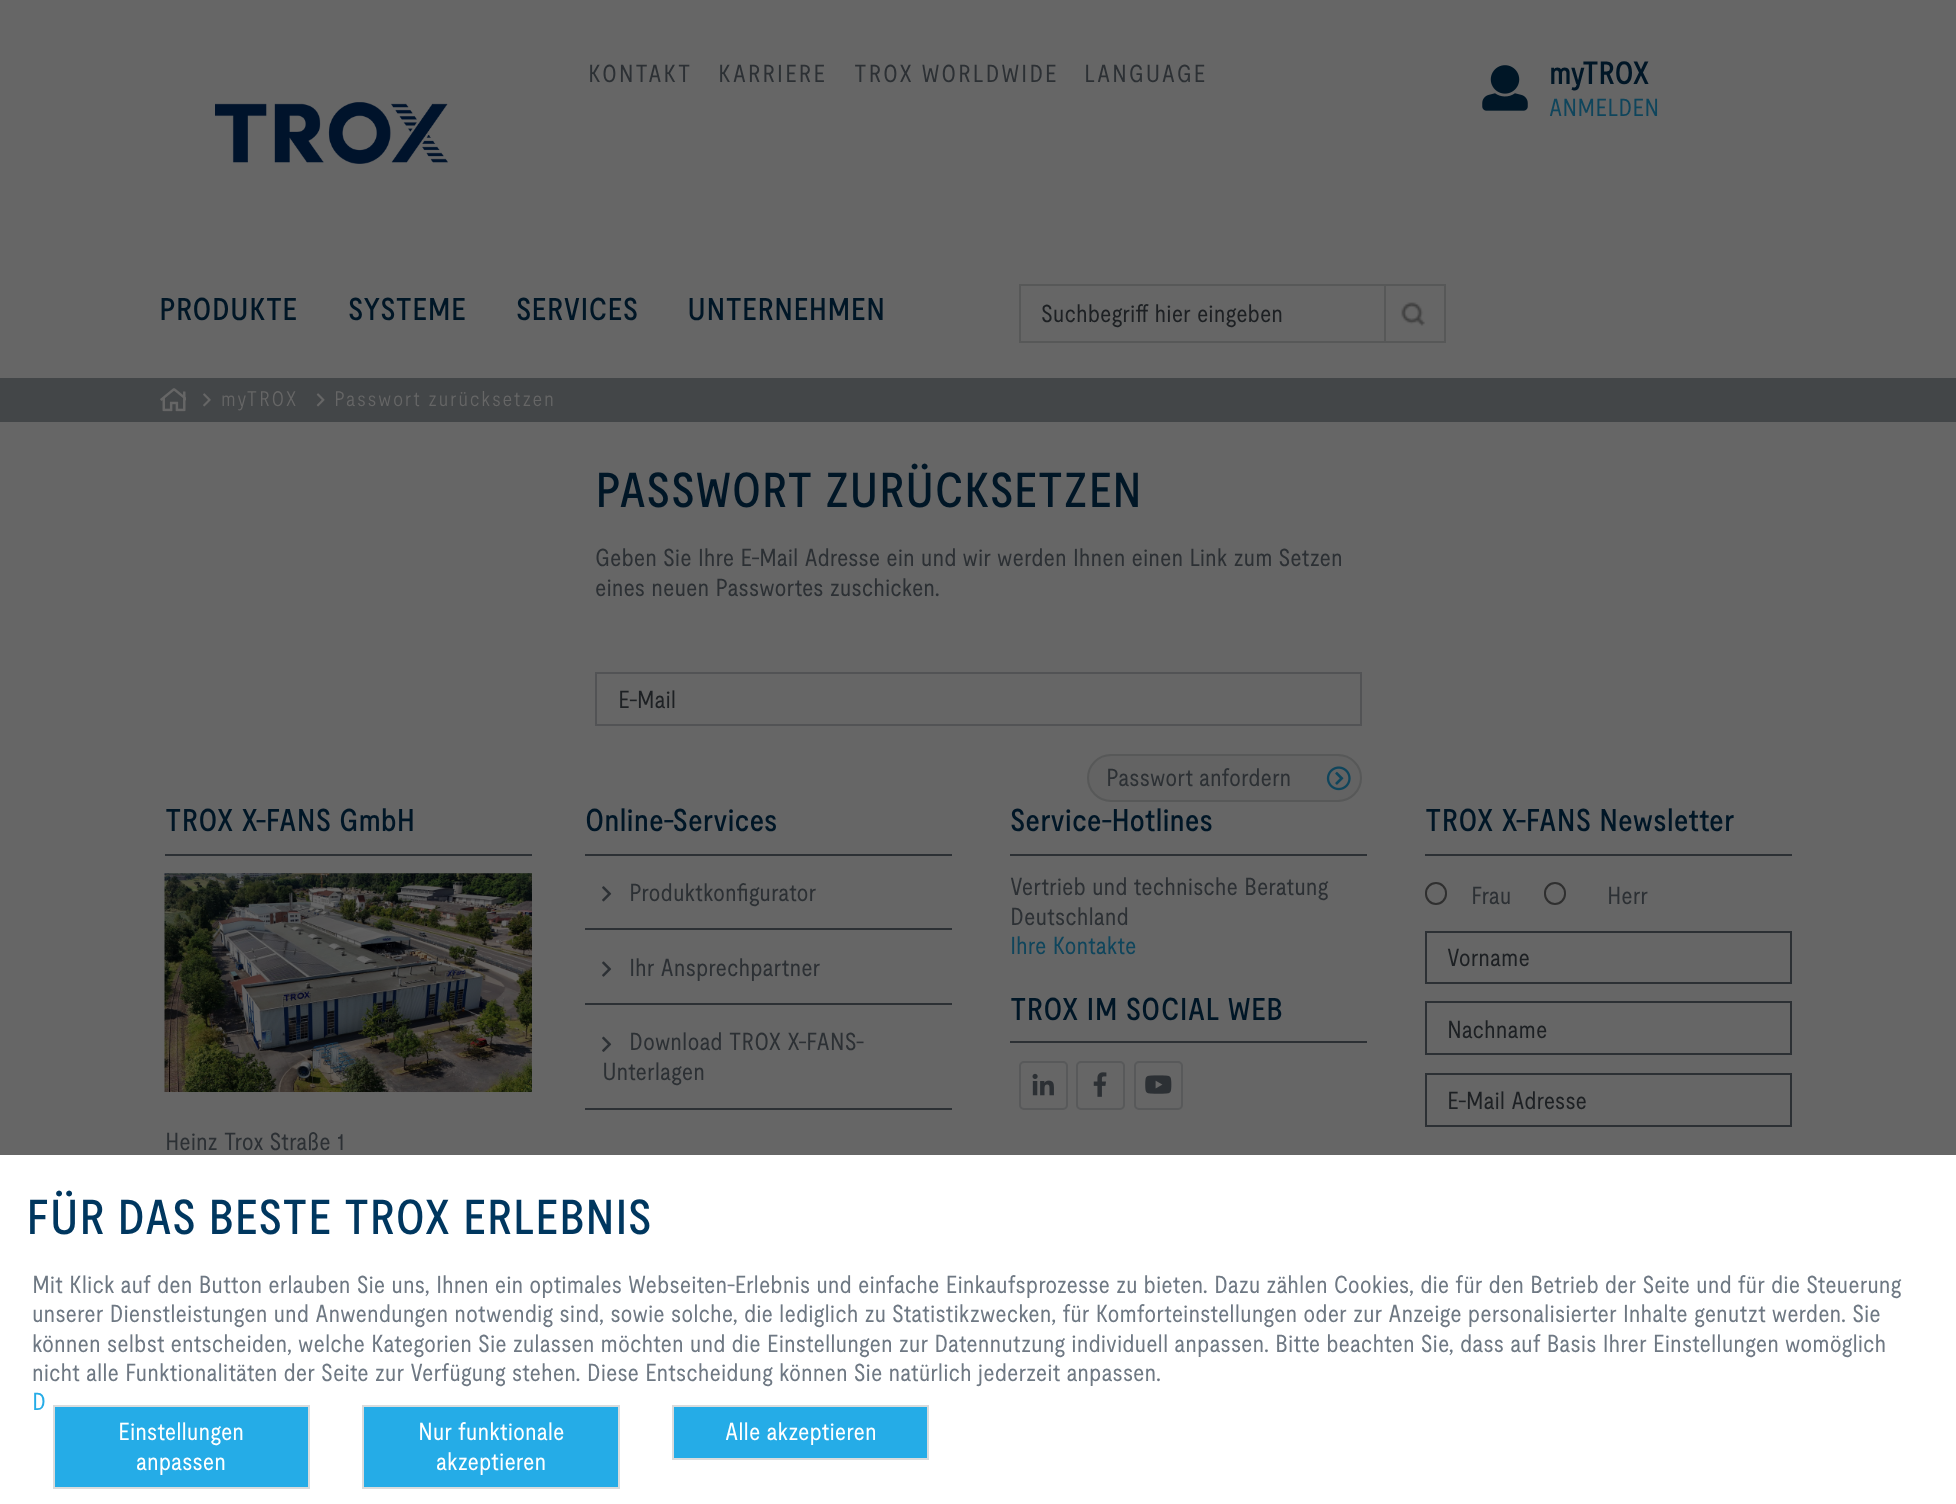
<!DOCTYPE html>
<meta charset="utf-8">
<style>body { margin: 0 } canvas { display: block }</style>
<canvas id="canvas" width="1956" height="1504"></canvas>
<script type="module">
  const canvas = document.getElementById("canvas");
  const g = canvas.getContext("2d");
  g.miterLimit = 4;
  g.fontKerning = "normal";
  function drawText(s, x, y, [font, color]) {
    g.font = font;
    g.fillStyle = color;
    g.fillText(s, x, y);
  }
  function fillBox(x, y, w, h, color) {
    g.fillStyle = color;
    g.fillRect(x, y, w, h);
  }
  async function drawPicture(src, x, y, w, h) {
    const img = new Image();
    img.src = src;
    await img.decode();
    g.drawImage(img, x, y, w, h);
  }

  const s1 = ["24.5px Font", "#2C3034"];
  const s2 = ["bold 31px Font", "#001626"];
  const s3 = ["24.5px Font", "#0F455C"];
  const s4 = ["500 31.5px Font", "#001626"];
  const s5 = ["24.5px Font", "#1D2023"];
  const s6 = ["300 21px Font", "#666666"];
  const s7 = ["500 49px Font", "#001626"];
  const s8 = ["500 49px Font", "#00375F"];
  const s9 = ["24.5px Font", "#6E7883"];
  const s10 = ["24.5px Font", "#25ACE7"];
  const s11 = ["24.5px Font", "#FFFFFF"];

  fillBox(0, 0, 1956, 1504, "#666666");
  g.letterSpacing = "1.75px";
  drawText("KONTAKT", 588, 82, s1);
  drawText("KARRIERE", 718, 82, s1);
  drawText("TROX WORLDWIDE", 854, 82, s1);
  drawText("LANGUAGE", 1084, 82, s1);
  await drawPicture("pic1.png", 1482, 65, 46, 46);
  g.letterSpacing = "0px";
  drawText("myTROX", 1549, 84, s2);
  drawText("ANMELDEN", 1549, 116, s3);
  await drawPicture("pic2.png", 215, 102, 233, 62);
  drawText("PRODUKTE", 159, 320, s4);
  drawText("SYSTEME", 348, 320, s4);
  drawText("SERVICES", 516, 320, s4);
  drawText("UNTERNEHMEN", 687, 320, s4);
  g.strokeStyle = "#575858";
  g.lineWidth = 2;
  g.strokeRect(1020, 285, 365, 57);
  drawText("Suchbegriff hier eingeben", 1041, 322, s5);
  await drawPicture("pic3.png", 1401, 302, 24, 24);
  fillBox(1386, 284, 60, 2, "#575858");
  fillBox(1444, 284, 2, 59, "#575858");
  fillBox(1386, 341, 60, 2, "#575858");
  fillBox(0, 378, 1956, 44, "#434648");
  await drawPicture("pic4.png", 160, 388, 26, 24);
  await drawPicture("pic5.png", 203, 393, 8, 14);
  g.letterSpacing = "1.75px";
  drawText("myTROX", 221, 406, s6);
  await drawPicture("pic6.png", 316, 393, 9, 14);
  drawText("Passwort zurücksetzen", 334, 406, s6);
  g.letterSpacing = "0px";
  drawText("PASSWORT ZURÜCKSETZEN", 595, 507, s7);
  drawText("Geben Sie Ihre E-Mail Adresse ein und wir werden Ihnen einen Link zum Setzen", 595, 566, s1);
  drawText("eines neuen Passwortes zuschicken.", 595, 596, s1);
  g.strokeStyle = "#525355";
  g.strokeRect(596, 673, 765, 52);
  drawText("E-Mail", 618, 708, s5);
  g.fillStyle = "#636363";
  g.beginPath();
  g.roundRect(1088, 755, 273, 46, 23);
  g.fill();
  g.strokeStyle = "#575858";
  g.stroke();
  drawText("Passwort anfordern", 1106, 786, s1);
  await drawPicture("pic7.png", 1326, 766, 25, 25);
  fillBox(165, 854, 367, 2, "#2C3034");
  drawText("TROX X-FANS GmbH", 165, 831, s4);
  await drawPicture("pic8.png", 164, 873, 368, 219);
  drawText("Heinz Trox Straße 1", 165, 1150, s1);
  fillBox(585, 854, 367, 2, "#2C3034");
  drawText("Online-Services", 585, 831, s4);
  fillBox(585, 928, 367, 2, "#2C3034");
  await drawPicture("pic9.png", 602, 886, 10, 16);
  drawText("Produktkonfigurator", 629, 901, s1);
  fillBox(585, 1003, 367, 2, "#2C3034");
  await drawPicture("pic10.png", 602, 961, 10, 16);
  drawText("Ihr Ansprechpartner", 629, 976, s1);
  fillBox(585, 1108, 367, 2, "#2C3034");
  await drawPicture("pic11.png", 602, 1036, 10, 16);
  drawText("Download TROX X-FANS-", 629, 1050, s1);
  drawText("Unterlagen", 602, 1080, s1);
  fillBox(1010, 854, 357, 2, "#2C3034");
  drawText("Service-Hotlines", 1010, 831, s4);
  drawText("Vertrieb und technische Beratung", 1010, 895, s1);
  drawText("Deutschland", 1010, 925, s1);
  drawText("Ihre Kontakte", 1010, 954, s3);
  fillBox(1010, 1041, 357, 2, "#2C3034");
  drawText("TROX IM SOCIAL WEB", 1010, 1020, s4);
  g.beginPath();
  g.roundRect(1020, 1062, 47, 47, 4);
  g.strokeStyle = "#58595A";
  g.stroke();
  await drawPicture("pic12.png", 1032, 1073, 22, 23);
  g.beginPath();
  g.roundRect(1077, 1062, 47, 47, 4);
  g.stroke();
  await drawPicture("pic13.png", 1093, 1072, 14, 25);
  g.beginPath();
  g.roundRect(1135, 1062, 47, 47, 4);
  g.stroke();
  await drawPicture("pic14.png", 1145, 1075, 27, 19);
  fillBox(1425, 854, 367, 2, "#2C3034");
  drawText("TROX X-FANS Newsletter", 1425, 831, s4);
  g.beginPath();
  g.roundRect(1426, 883, 20, 21, 10);
  g.strokeStyle = "#2F2F2F";
  g.stroke();
  drawText("Frau", 1471, 904, s1);
  g.beginPath();
  g.roundRect(1545, 883, 20, 21, 10);
  g.stroke();
  drawText("Herr", 1607, 904, s1);
  g.strokeStyle = "#2C3034";
  g.strokeRect(1426, 932, 365, 51);
  drawText("Vorname", 1447, 966, s5);
  g.strokeRect(1426, 1002, 365, 52);
  drawText("Nachname", 1447, 1038, s5);
  g.strokeRect(1426, 1074, 365, 52);
  drawText("E-Mail Adresse", 1447, 1109, s5);
  fillBox(0, 1155, 1956, 349, "#FFFFFF");
  drawText("FÜR DAS BESTE TROX ERLEBNIS", 26, 1234, s8);
  drawText("Mit Klick auf den Button erlauben Sie uns, Ihnen ein optimales Webseiten-Erlebnis und einfache Einkaufsprozesse zu bieten. Dazu zählen Cookies, die für den Betrieb der Seite und für die Steuerung", 32, 1293, s9);
  drawText("unserer Dienstleistungen und Anwendungen notwendig sind, sowie solche, die lediglich zu Statistikzwecken, für Komforteinstellungen oder zur Anzeige personalisierter Inhalte genutzt werden. Sie", 32, 1322, s9);
  drawText("können selbst entscheiden, welche Kategorien Sie zulassen möchten und die Einstellungen zur Datennutzung individuell anpassen. Bitte beachten Sie, dass auf Basis Ihrer Einstellungen womöglich", 32, 1352, s9);
  drawText("nicht alle Funktionalitäten der Seite zur Verfügung stehen. Diese Entscheidung können Sie natürlich jederzeit anpassen.", 32, 1381, s9);
  drawText("D", 32, 1410, s10);
  g.beginPath();
  g.rect(54, 1406, 255, 82);
  g.fill();
  g.strokeStyle = "#D9DCDD";
  g.stroke();
  drawText("Einstellungen", 118, 1440, s11);
  drawText("anpassen", 136, 1470, s11);
  g.fillStyle = "#25ACE7";
  g.beginPath();
  g.rect(363, 1406, 256, 82);
  g.fill();
  g.stroke();
  drawText("Nur funktionale", 418, 1440, s11);
  drawText("akzeptieren", 436, 1470, s11);
  g.fillStyle = "#25ACE7";
  g.beginPath();
  g.rect(673, 1406, 255, 53);
  g.fill();
  g.stroke();
  drawText("Alle akzeptieren", 725, 1440, s11);
</script>
